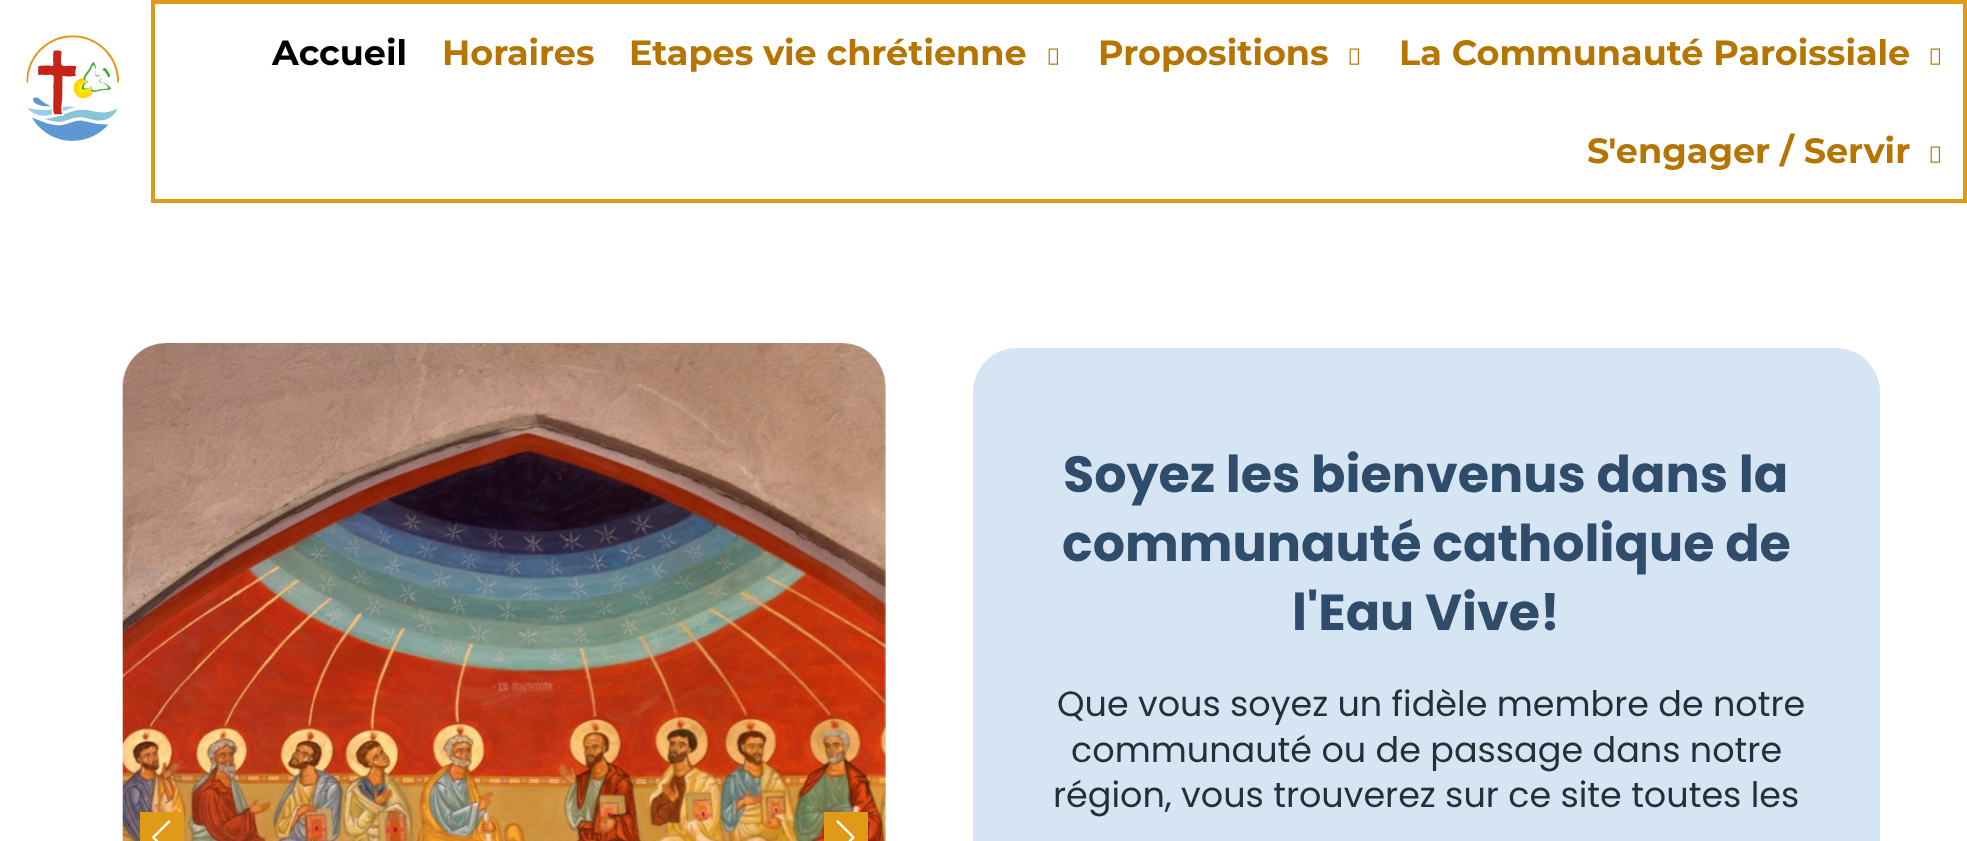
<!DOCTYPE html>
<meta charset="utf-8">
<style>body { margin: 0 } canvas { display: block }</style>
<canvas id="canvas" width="1967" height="841"></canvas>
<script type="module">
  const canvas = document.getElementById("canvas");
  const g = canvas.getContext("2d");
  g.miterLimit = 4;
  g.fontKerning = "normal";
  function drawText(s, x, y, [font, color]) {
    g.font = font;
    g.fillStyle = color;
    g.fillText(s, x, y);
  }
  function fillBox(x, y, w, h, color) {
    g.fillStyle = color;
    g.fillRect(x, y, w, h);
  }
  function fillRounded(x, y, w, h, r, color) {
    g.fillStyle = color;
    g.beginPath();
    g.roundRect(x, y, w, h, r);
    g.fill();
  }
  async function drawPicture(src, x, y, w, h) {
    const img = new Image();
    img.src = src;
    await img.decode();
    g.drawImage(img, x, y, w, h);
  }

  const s1 = ["bold 35px Montserrat", "#000000"];
  const s2 = ["bold 35px Montserrat", "#B57500"];
  const s3 = ["bold 50.75px Poppins", "#2F4C6A"];
  const s4 = ["35px Poppins", "#233136"];

  fillBox(0, 0, 1967, 841, "#FFFFFF");
  await drawPicture("pic1.png", 26, 35, 94, 106);
  g.strokeStyle = "#DF9A18";
  g.lineWidth = 4;
  g.strokeRect(153, 2, 1812, 199);
  drawText("Accueil", 272, 65, s1);
  drawText("Horaires", 442, 65, s2);
  drawText("Etapes vie chrétienne", 629, 65, s2);
  await drawPicture("pic2.png", 1048, 48, 10, 17);
  drawText("Propositions", 1098, 65, s2);
  await drawPicture("pic2.png", 1349, 48, 10, 17);
  drawText("La Communauté Paroissiale", 1399, 65, s2);
  await drawPicture("pic2.png", 1930, 48, 10, 17);
  drawText("S'engager / Servir", 1587, 163, s2);
  await drawPicture("pic2.png", 1930, 146, 10, 17);
  fillRounded(123, 343, 763, 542, 44, "#FBF4E6");
  await drawPicture("pic3.png", 122, 343, 764, 498);
  fillBox(140, 812, 44, 29, "#DF9A18");
  await drawPicture("pic4.png", 152, 820, 19, 21);
  fillBox(824, 812, 44, 29, "#DF9A18");
  await drawPicture("pic5.png", 836, 820, 19, 21);
  fillRounded(973, 348, 907, 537, 44, "#D6E5F4");
  drawText("Soyez les bienvenus dans la", 1063, 492, s3);
  drawText("communauté catholique de", 1062, 561, s3);
  drawText("l'Eau Vive!", 1292, 630, s3);
  drawText("Que vous soyez un fidèle membre de notre", 1057, 716, s4);
  drawText("communauté ou de passage dans notre", 1071, 762, s4);
  drawText("région, vous trouverez sur ce site toutes les", 1053, 807, s4);
</script>
